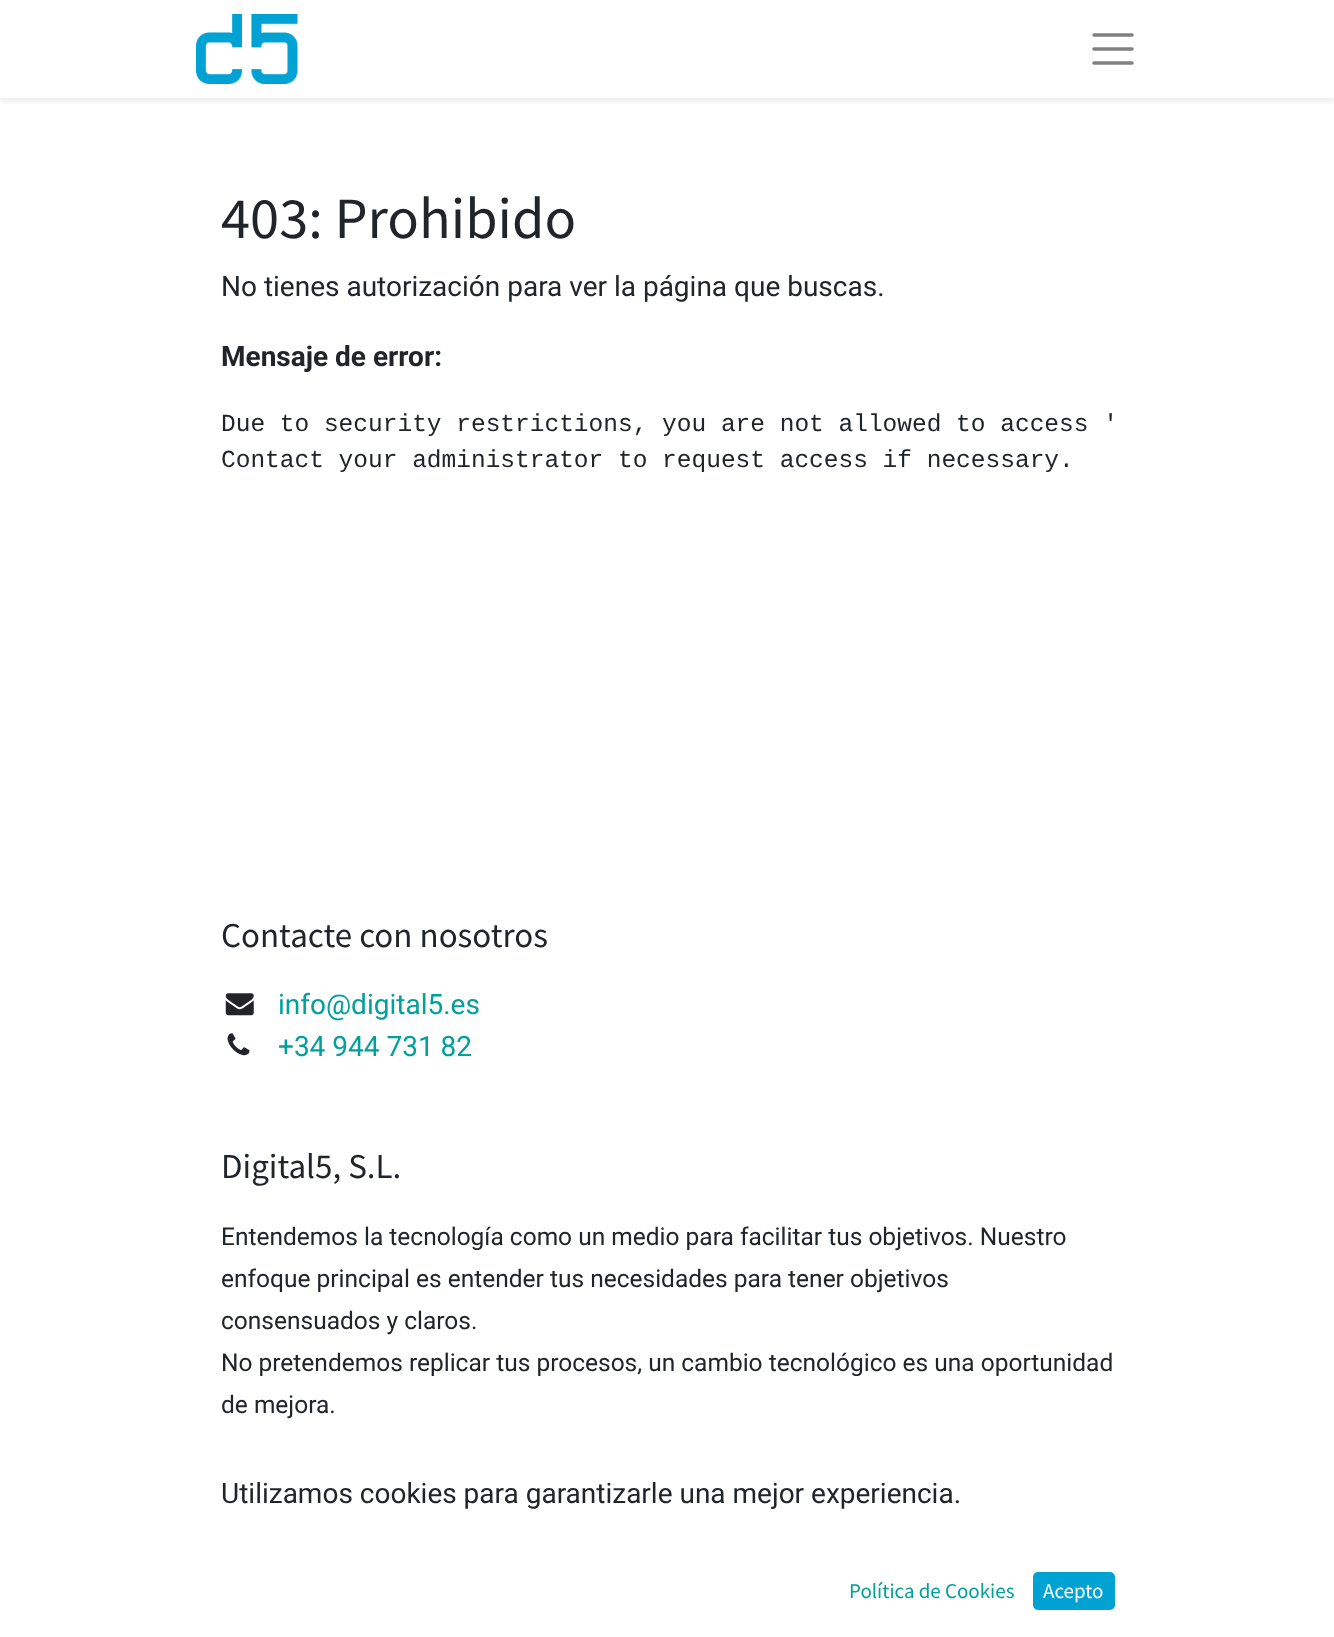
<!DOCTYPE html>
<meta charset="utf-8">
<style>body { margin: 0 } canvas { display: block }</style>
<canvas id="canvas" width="1334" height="1637"></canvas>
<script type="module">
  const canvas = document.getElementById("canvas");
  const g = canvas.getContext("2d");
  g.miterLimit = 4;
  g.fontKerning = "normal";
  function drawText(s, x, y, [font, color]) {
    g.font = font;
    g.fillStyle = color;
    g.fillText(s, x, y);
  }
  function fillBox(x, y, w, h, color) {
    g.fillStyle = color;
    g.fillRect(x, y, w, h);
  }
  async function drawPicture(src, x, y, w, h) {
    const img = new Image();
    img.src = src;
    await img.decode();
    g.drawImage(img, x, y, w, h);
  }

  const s1 = ["58.5px Source Sans Pro", "#212529"];
  const s2 = ["28px Roboto", "#212529"];
  const s3 = ["bold 28px Roboto", "#212529"];
  const s4 = ["24.5px Liberation Mono", "#212529"];
  const s5 = ["35px Source Sans Pro", "#212529"];
  const s6 = ["28px Roboto", "#00A09D"];
  const s7 = ["24.5px Roboto", "#212529"];
  const s8 = ["21px Source Sans Pro", "#00A09D"];
  const s9 = ["21px Source Sans Pro", "#FFFFFF"];

  fillBox(0, 0, 1334, 1637, "#FFFFFF");
  g.save();
  g.beginPath();
  g.rect(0, 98, 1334, 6);
  g.clip();
  g.fillStyle = "rgba(0, 0, 0, 0.07)";
  g.filter = "blur(3.5px)";
  g.beginPath();
  g.rect(0, 4, 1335, 98);
  g.fill();
  g.filter = "none";
  g.restore();
  await drawPicture("pic1.png", 196, 14, 102, 70);
  g.beginPath();
  g.moveTo(1094, 35);
  g.lineTo(1132, 35);
  g.moveTo(1094, 49);
  g.lineTo(1132, 49);
  g.moveTo(1094, 63);
  g.lineTo(1132, 63);
  g.strokeStyle = "#808080";
  g.lineWidth = 3.5;
  g.lineCap = "round";
  g.stroke();
  drawText("403: Prohibido", 221, 238, s1);
  drawText("No tienes autorización para ver la página que buscas.", 221, 296, s2);
  drawText("Mensaje de error:", 221, 366, s3);
  drawText("Due to security restrictions, you are not allowed to access '", 221, 431, s4);
  drawText("Contact your administrator to request access if necessary.", 221, 467, s4);
  drawText("Contacte con nosotros", 221, 947, s5);
  await drawPicture("pic2.png", 225, 993, 29, 23);
  drawText("info@digital5.es", 278, 1014, s6);
  await drawPicture("pic3.png", 227, 1033, 23, 23);
  drawText("+34 944 731 82", 278, 1056, s6);
  drawText("Digital5, S.L.", 221, 1178, s5);
  drawText("Entendemos la tecnología como un medio para facilitar tus objetivos. Nuestro", 221, 1245, s7);
  drawText("enfoque principal es entender tus necesidades para tener objetivos", 221, 1287, s7);
  drawText("consensuados y claros.", 221, 1329, s7);
  drawText("No pretendemos replicar tus procesos, un cambio tecnológico es una oportunidad", 221, 1371, s7);
  drawText("de mejora.", 221, 1413, s7);
  drawText("Utilizamos cookies para garantizarle una mejor experiencia.", 221, 1503, s2);
  drawText("Política de Cookies", 849, 1598, s8);
  g.fillStyle = "#00A1D3";
  g.beginPath();
  g.roundRect(1034, 1573, 80, 36, 4);
  g.fill();
  g.strokeStyle = "#00A1D3";
  g.lineWidth = 2;
  g.stroke();
  drawText("Acepto", 1043, 1598, s9);
</script>
